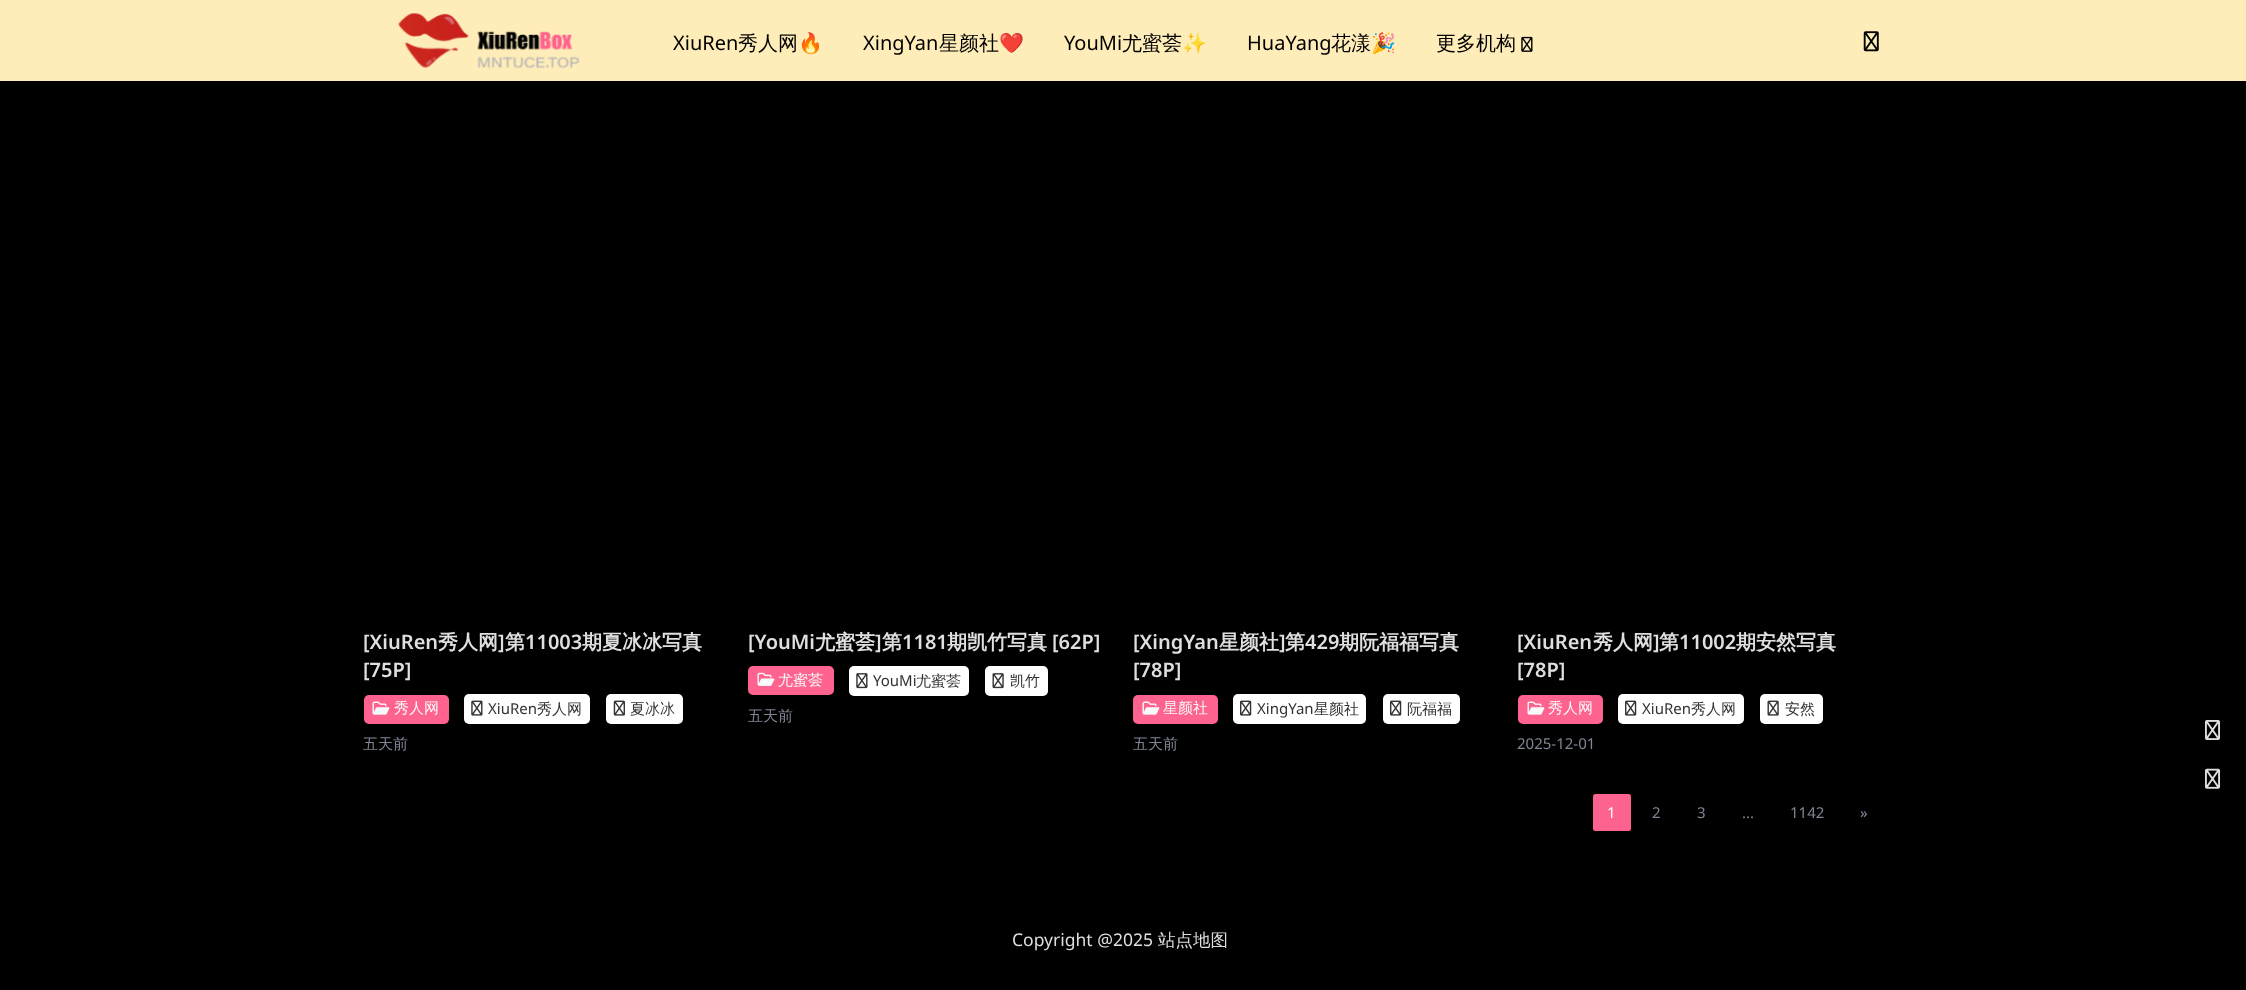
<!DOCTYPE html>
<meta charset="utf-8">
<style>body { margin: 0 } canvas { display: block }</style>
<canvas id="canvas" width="2246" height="990"></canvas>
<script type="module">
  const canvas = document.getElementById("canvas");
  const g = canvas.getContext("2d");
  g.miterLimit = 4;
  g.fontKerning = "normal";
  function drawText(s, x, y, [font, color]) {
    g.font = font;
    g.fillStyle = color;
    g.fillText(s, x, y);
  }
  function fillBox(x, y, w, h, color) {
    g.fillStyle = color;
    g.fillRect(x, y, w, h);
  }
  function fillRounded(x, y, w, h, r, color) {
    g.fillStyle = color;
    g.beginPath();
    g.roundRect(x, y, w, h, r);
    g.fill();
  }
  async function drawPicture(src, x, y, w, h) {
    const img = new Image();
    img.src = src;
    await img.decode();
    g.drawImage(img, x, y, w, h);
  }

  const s1 = ["20px Noto Sans", "#000000"];
  const s2 = ["500 20px WenQuanYi Zen Hei", "#000000"];
  const s3 = ["20px Noto Color Emoji", "#000000"];
  const s4 = ["600 20px Noto Sans", "#DFDFDF"];
  const s5 = ["bold 20px WenQuanYi Zen Hei", "#DFDFDF"];
  const s6 = ["500 15px WenQuanYi Zen Hei", "#F8F9FA"];
  const s7 = ["15px Noto Sans", "#333333"];
  const s8 = ["500 15px WenQuanYi Zen Hei", "#333333"];
  const s9 = ["500 15px WenQuanYi Zen Hei", "#808695"];
  const s10 = ["15px Noto Sans", "#808695"];
  const s11 = ["15px Noto Sans", "#FFFFFF"];
  const s12 = ["17.5px Noto Sans", "#DFDFDF"];
  const s13 = ["500 17.5px WenQuanYi Zen Hei", "#DFDFDF"];

  fillBox(0, 0, 2246, 990, "#000000");
  fillBox(0, 0, 2246, 81, "#FFEDB9");
  await drawPicture("pic1.png", 398, 13, 182, 56);
  drawText("XiuRen", 673, 50, s1);
  drawText("秀人网", 738, 50, s2);
  drawText("🔥", 798, 50, s3);
  drawText("XingYan", 863, 50, s1);
  drawText("星颜社", 939, 50, s2);
  drawText("❤️", 999, 50, s3);
  drawText("YouMi", 1064, 50, s1);
  drawText("尤蜜荟", 1122, 50, s2);
  drawText("✨", 1182, 50, s3);
  drawText("HuaYang", 1247, 50, s1);
  drawText("花漾", 1331, 50, s2);
  drawText("🎉", 1371, 50, s3);
  drawText("更多机构", 1436, 50, s2);
  await drawPicture("pic2.png", 1521, 36, 12, 16);
  await drawPicture("pic3.png", 1863, 31, 16, 21);
  drawText("[XiuRen", 363, 649, s4);
  drawText("秀人网", 438, 649, s5);
  drawText("]", 498, 649, s4);
  drawText("第", 505, 649, s5);
  drawText("11003", 525, 649, s4);
  drawText("期夏冰冰写真", 582, 649, s5);
  drawText("[75P]", 363, 677, s4);
  fillRounded(364, 695, 85, 29, 5, "#FE628E");
  await drawPicture("pic4.png", 372, 701, 18, 14);
  drawText("秀人网", 394, 713, s6);
  fillRounded(464, 694, 126, 30, 5, "#FFFFFF");
  await drawPicture("pic5.png", 471, 700, 12, 16);
  drawText("XiuRen", 488, 714, s7);
  drawText("秀人网", 537, 714, s8);
  fillRounded(606, 694, 77, 30, 5, "#FFFFFF");
  await drawPicture("pic6.png", 613, 700, 12, 16);
  drawText("夏冰冰", 630, 714, s8);
  drawText("五天前", 363, 749, s9);
  drawText("[YouMi", 748, 649, s4);
  drawText("尤蜜荟", 815, 649, s5);
  drawText("]", 875, 649, s4);
  drawText("第", 882, 649, s5);
  drawText("1181", 902, 649, s4);
  drawText("期凯竹写真", 947, 649, s5);
  drawText("[62P]", 1052, 649, s4);
  fillRounded(748, 666, 86, 29, 5, "#FE628E");
  await drawPicture("pic7.png", 757, 672, 18, 14);
  drawText("尤蜜荟", 778, 685, s6);
  fillRounded(849, 666, 120, 30, 5, "#FFFFFF");
  await drawPicture("pic8.png", 856, 673, 12, 16);
  drawText("YouMi", 873, 686, s7);
  drawText("尤蜜荟", 916, 686, s8);
  fillRounded(985, 666, 63, 30, 5, "#FFFFFF");
  await drawPicture("pic9.png", 992, 673, 12, 16);
  drawText("凯竹", 1010, 686, s8);
  drawText("五天前", 748, 721, s9);
  drawText("[XingYan", 1133, 649, s4);
  drawText("星颜社", 1219, 649, s5);
  drawText("]", 1279, 649, s4);
  drawText("第", 1285, 649, s5);
  drawText("429", 1305, 649, s4);
  drawText("期阮福福写真", 1339, 649, s5);
  drawText("[78P]", 1133, 677, s4);
  fillRounded(1133, 695, 85, 29, 5, "#FE628E");
  await drawPicture("pic4.png", 1142, 701, 18, 14);
  drawText("星颜社", 1163, 713, s6);
  fillRounded(1233, 694, 133, 30, 5, "#FFFFFF");
  await drawPicture("pic10.png", 1240, 700, 12, 16);
  drawText("XingYan", 1257, 714, s7);
  drawText("星颜社", 1314, 714, s8);
  fillRounded(1383, 694, 77, 30, 5, "#FFFFFF");
  await drawPicture("pic10.png", 1390, 700, 12, 16);
  drawText("阮福福", 1407, 714, s8);
  drawText("五天前", 1133, 749, s9);
  drawText("[XiuRen", 1517, 649, s4);
  drawText("秀人网", 1593, 649, s5);
  drawText("]", 1653, 649, s4);
  drawText("第", 1659, 649, s5);
  drawText("11002", 1679, 649, s4);
  drawText("期安然写真", 1736, 649, s5);
  drawText("[78P]", 1517, 677, s4);
  fillRounded(1518, 695, 85, 29, 5, "#FE628E");
  await drawPicture("pic4.png", 1527, 701, 18, 14);
  drawText("秀人网", 1548, 713, s6);
  fillRounded(1618, 694, 126, 30, 5, "#FFFFFF");
  await drawPicture("pic10.png", 1625, 700, 12, 16);
  drawText("XiuRen", 1642, 714, s7);
  drawText("秀人网", 1691, 714, s8);
  fillRounded(1760, 694, 63, 30, 5, "#FFFFFF");
  await drawPicture("pic11.png", 1767, 700, 12, 16);
  drawText("安然", 1785, 714, s8);
  drawText("2025-12-01", 1517, 749, s10);
  fillRounded(1593, 794, 38, 37, 2.5, "#FE628E");
  drawText("1", 1607, 818, s11);
  drawText("2", 1652, 818, s10);
  drawText("3", 1697, 818, s10);
  drawText("...", 1742, 818, s10);
  drawText("1142", 1790, 818, s10);
  drawText("»", 1860, 818, s10);
  await drawPicture("pic12.png", 2205, 720, 15, 20);
  await drawPicture("pic13.png", 2205, 768, 15, 21);
  drawText("Copyright @2025", 1012, 946, s12);
  drawText("站点地图", 1158, 946, s13);
</script>
